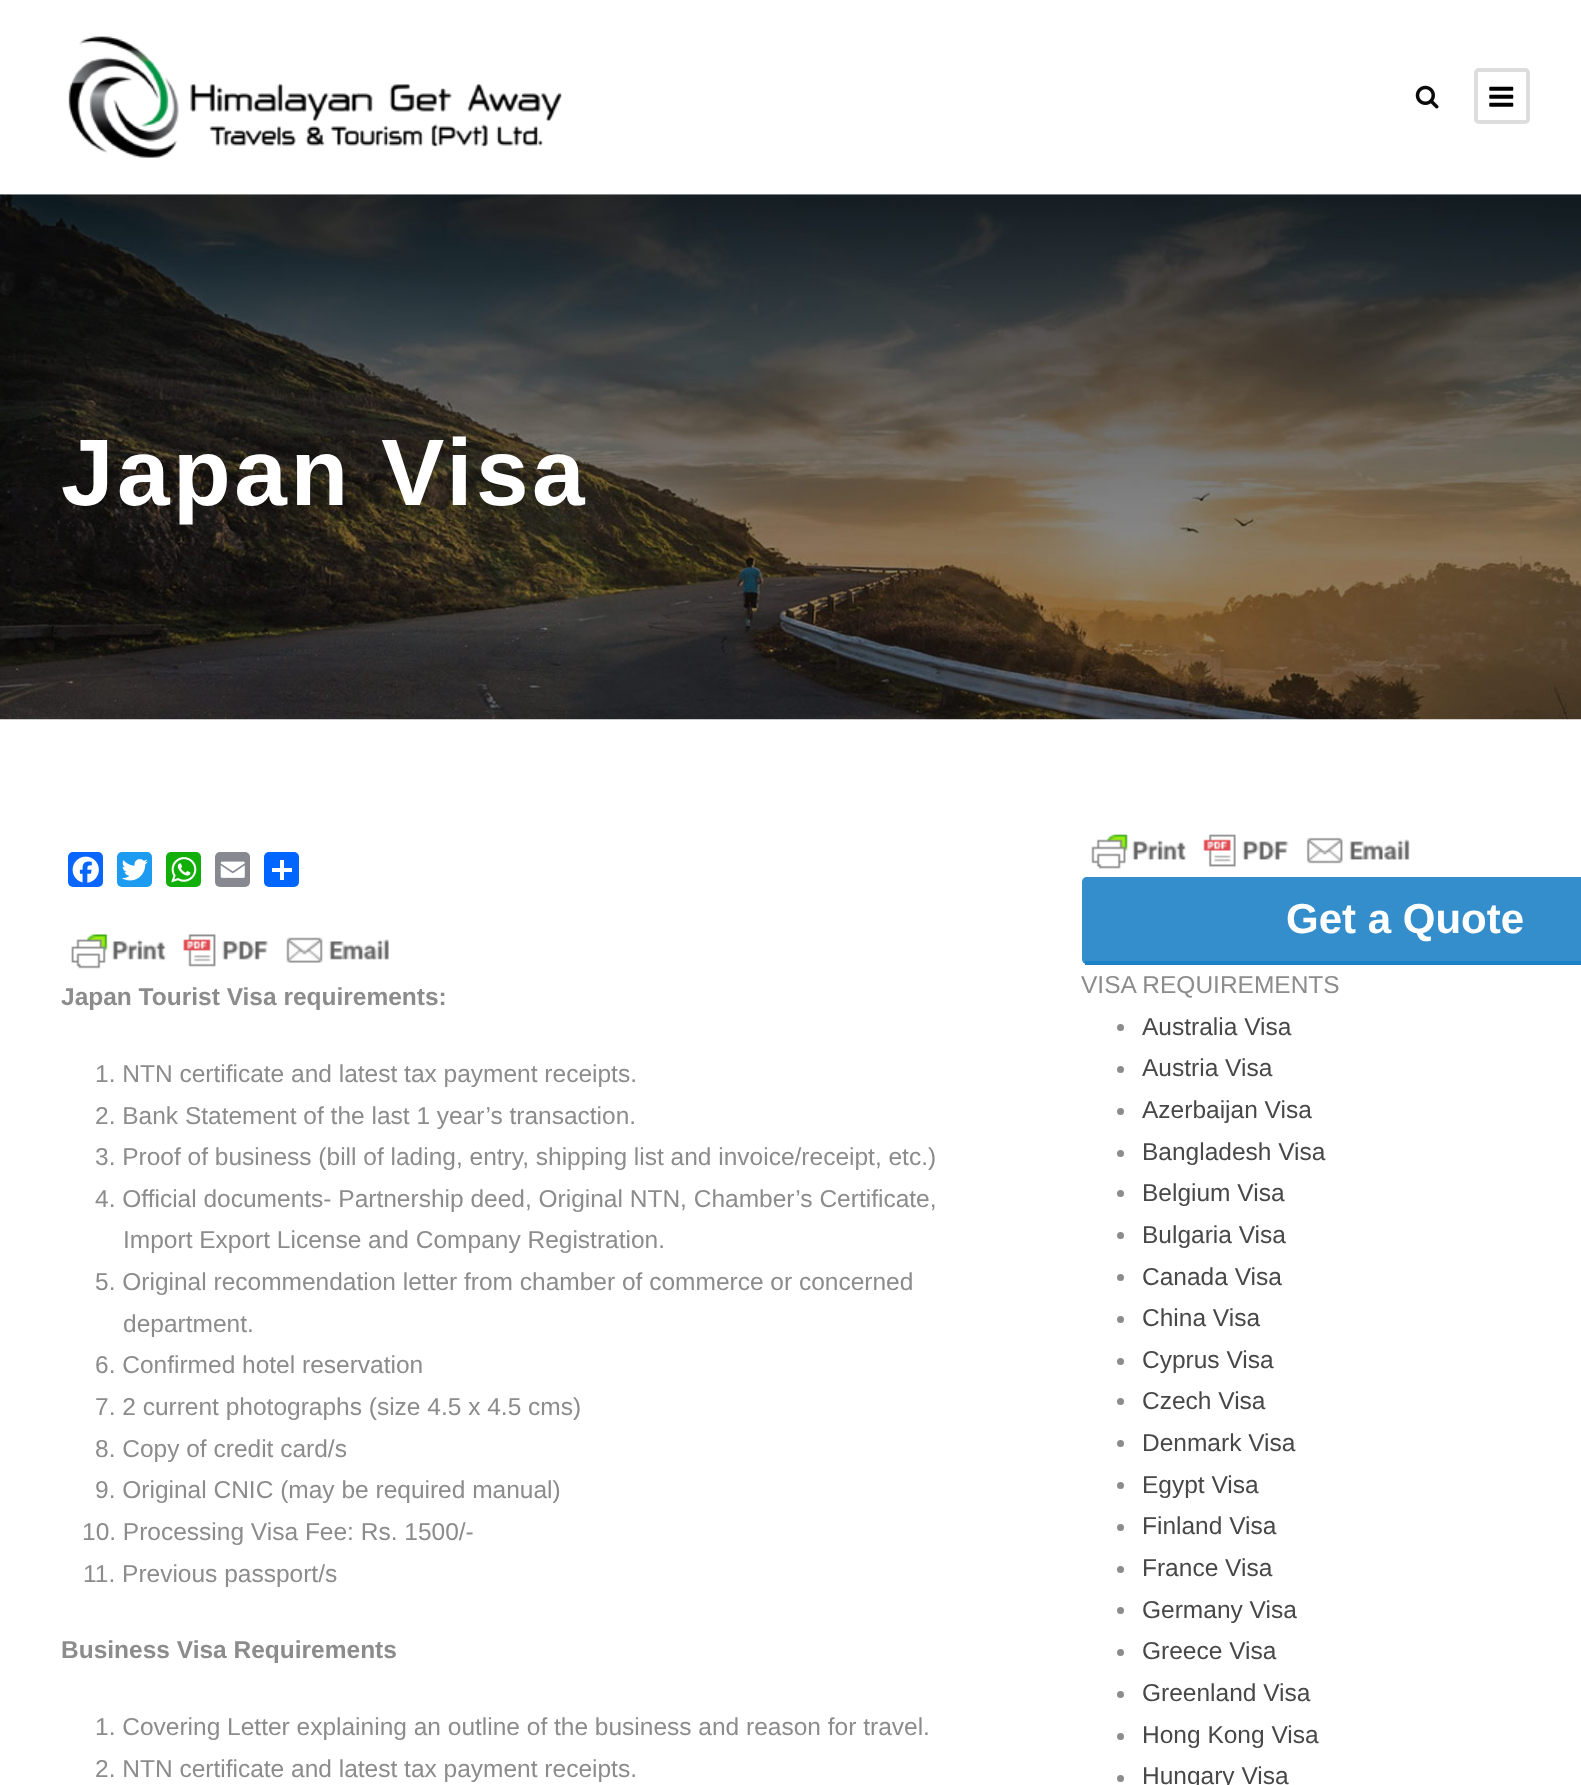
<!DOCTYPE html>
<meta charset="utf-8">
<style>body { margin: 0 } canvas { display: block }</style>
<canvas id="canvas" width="1581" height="1785"></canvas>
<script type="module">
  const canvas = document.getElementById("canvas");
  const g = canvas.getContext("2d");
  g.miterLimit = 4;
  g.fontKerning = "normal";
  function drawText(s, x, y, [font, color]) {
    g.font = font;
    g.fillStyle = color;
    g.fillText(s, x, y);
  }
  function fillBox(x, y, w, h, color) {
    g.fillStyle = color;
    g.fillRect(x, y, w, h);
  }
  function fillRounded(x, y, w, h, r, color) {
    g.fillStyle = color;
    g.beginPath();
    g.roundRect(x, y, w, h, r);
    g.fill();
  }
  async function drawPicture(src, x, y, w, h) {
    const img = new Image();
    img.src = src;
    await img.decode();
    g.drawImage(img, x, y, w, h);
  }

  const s1 = ["bold 94.5px Liberation Sans", "#FFFFFF"];
  const s2 = ["bold 24.5px Liberation Sans", "#8C8C8C"];
  const s3 = ["24.5px Liberation Sans", "#8C8C8C"];
  const s4 = ["bold 42px Liberation Sans", "#FFFFFF"];
  const s5 = ["24.5px Liberation Sans", "#484848"];

  fillBox(0, 0, 1581, 1785, "#FFFFFF");
  await drawPicture("pic1.png", 68, 36, 494, 122);
  await drawPicture("pic2.png", 1415, 85, 24, 24);
  g.beginPath();
  g.roundRect(1476, 70, 52, 52, 3);
  g.strokeStyle = "#DDDDDD";
  g.lineWidth = 4;
  g.stroke();
  await drawPicture("pic3.png", 1489, 86, 25, 21);
  await drawPicture("pic4.png", 0, 194, 1581, 526);
  g.letterSpacing = "3.5px";
  drawText("Japan Visa", 61, 505, s1);
  fillRounded(68, 852, 35, 35, 5, "#0866FF");
  await drawPicture("pic5.png", 72, 856, 27, 27);
  fillRounded(117, 852, 35, 35, 5, "#1D9BF0");
  await drawPicture("pic6.png", 121, 859, 27, 22);
  fillRounded(166, 852, 35, 35, 5, "#12AF0A");
  await drawPicture("pic7.png", 171, 857, 26, 26);
  fillRounded(215, 852, 35, 35, 5, "#888990");
  await drawPicture("pic8.png", 220, 861, 25, 17);
  fillRounded(264, 852, 35, 35, 5, "#0166FF");
  fillBox(280, 860, 4, 20, "#FFFFFF");
  fillBox(272, 868, 20, 4, "#FFFFFF");
  await drawPicture("pic9.png", 71, 934, 318, 35);
  g.letterSpacing = "0px";
  drawText("Japan Tourist Visa requirements:", 61, 1005, s2);
  drawText("1. NTN certificate and latest tax payment receipts.", 95, 1082, s3);
  drawText("2. Bank Statement of the last 1 year’s transaction.", 95, 1124, s3);
  drawText("3. Proof of business (bill of lading, entry, shipping list and invoice/receipt, etc.)", 95, 1165, s3);
  drawText("4. Official documents- Partnership deed, Original NTN, Chamber’s Certificate,", 95, 1207, s3);
  drawText("Import Export License and Company Registration.", 123, 1248, s3);
  drawText("5. Original recommendation letter from chamber of commerce or concerned", 95, 1290, s3);
  drawText("department.", 123, 1332, s3);
  drawText("6. Confirmed hotel reservation", 95, 1373, s3);
  drawText("7. 2 current photographs (size 4.5 x 4.5 cms)", 95, 1415, s3);
  drawText("8. Copy of credit card/s", 95, 1457, s3);
  drawText("9. Original CNIC (may be required manual)", 95, 1498, s3);
  drawText("10. Processing Visa Fee: Rs. 1500/-", 82, 1540, s3);
  drawText("11. Previous passport/s", 83, 1582, s3);
  drawText("Business Visa Requirements", 61, 1658, s2);
  drawText("1. Covering Letter explaining an outline of the business and reason for travel.", 95, 1735, s3);
  drawText("2. NTN certificate and latest tax payment receipts.", 95, 1777, s3);
  await drawPicture("pic10.png", 1091, 834, 319, 35);
  g.fillStyle = "#348ECC";
  g.beginPath();
  g.moveTo(1087, 877);
  g.lineTo(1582, 877);
  g.lineTo(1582, 964);
  g.lineTo(1087, 964);
  g.bezierCurveTo(1084, 964, 1082, 962, 1082, 959);
  g.lineTo(1082, 882);
  g.bezierCurveTo(1082, 879, 1084, 877, 1087, 877);
  g.closePath();
  g.fill();
  fillBox(1085, 961, 496, 4, "#1B80C5");
  drawText("Get a Quote", 1286, 933, s4);
  drawText("VISA REQUIREMENTS", 1081, 993, s3);
  g.beginPath();
  g.arc(1120.5, 1027.5, 3.5, 0, Math.PI * 2);
  g.fill();
  drawText("Australia Visa", 1142, 1035, s5);
  g.fillStyle = "#8C8C8C";
  g.beginPath();
  g.arc(1120.5, 1069.5, 3.5, 0, Math.PI * 2);
  g.fill();
  drawText("Austria Visa", 1142, 1076, s5);
  g.fillStyle = "#8C8C8C";
  g.beginPath();
  g.arc(1120.5, 1111.5, 3.5, 0, Math.PI * 2);
  g.fill();
  drawText("Azerbaijan Visa", 1142, 1118, s5);
  g.fillStyle = "#8C8C8C";
  g.beginPath();
  g.arc(1120.5, 1153.5, 3.5, 0, Math.PI * 2);
  g.fill();
  drawText("Bangladesh Visa", 1142, 1160, s5);
  g.fillStyle = "#8C8C8C";
  g.beginPath();
  g.arc(1120.5, 1193.5, 3.5, 0, Math.PI * 2);
  g.fill();
  drawText("Belgium Visa", 1142, 1201, s5);
  g.fillStyle = "#8C8C8C";
  g.beginPath();
  g.arc(1120.5, 1235.5, 3.5, 0, Math.PI * 2);
  g.fill();
  drawText("Bulgaria Visa", 1142, 1243, s5);
  g.fillStyle = "#8C8C8C";
  g.beginPath();
  g.arc(1120.5, 1277.5, 3.5, 0, Math.PI * 2);
  g.fill();
  drawText("Canada Visa", 1142, 1285, s5);
  g.fillStyle = "#8C8C8C";
  g.beginPath();
  g.arc(1120.5, 1319.5, 3.5, 0, Math.PI * 2);
  g.fill();
  drawText("China Visa", 1142, 1326, s5);
  g.fillStyle = "#8C8C8C";
  g.beginPath();
  g.arc(1120.5, 1361.5, 3.5, 0, Math.PI * 2);
  g.fill();
  drawText("Cyprus Visa", 1142, 1368, s5);
  g.fillStyle = "#8C8C8C";
  g.beginPath();
  g.arc(1120.5, 1401.5, 3.5, 0, Math.PI * 2);
  g.fill();
  drawText("Czech Visa", 1142, 1409, s5);
  g.fillStyle = "#8C8C8C";
  g.beginPath();
  g.arc(1120.5, 1443.5, 3.5, 0, Math.PI * 2);
  g.fill();
  drawText("Denmark Visa", 1142, 1451, s5);
  g.fillStyle = "#8C8C8C";
  g.beginPath();
  g.arc(1120.5, 1485.5, 3.5, 0, Math.PI * 2);
  g.fill();
  drawText("Egypt Visa", 1142, 1493, s5);
  g.fillStyle = "#8C8C8C";
  g.beginPath();
  g.arc(1120.5, 1527.5, 3.5, 0, Math.PI * 2);
  g.fill();
  drawText("Finland Visa", 1142, 1534, s5);
  g.fillStyle = "#8C8C8C";
  g.beginPath();
  g.arc(1120.5, 1569.5, 3.5, 0, Math.PI * 2);
  g.fill();
  drawText("France Visa", 1142, 1576, s5);
  g.fillStyle = "#8C8C8C";
  g.beginPath();
  g.arc(1120.5, 1610.5, 3.5, 0, Math.PI * 2);
  g.fill();
  drawText("Germany Visa", 1142, 1618, s5);
  g.fillStyle = "#8C8C8C";
  g.beginPath();
  g.arc(1120.5, 1652.5, 3.5, 0, Math.PI * 2);
  g.fill();
  drawText("Greece Visa", 1142, 1659, s5);
  g.fillStyle = "#8C8C8C";
  g.beginPath();
  g.arc(1120.5, 1694.5, 3.5, 0, Math.PI * 2);
  g.fill();
  drawText("Greenland Visa", 1142, 1701, s5);
  g.fillStyle = "#8C8C8C";
  g.beginPath();
  g.arc(1120.5, 1736.5, 3.5, 0, Math.PI * 2);
  g.fill();
  drawText("Hong Kong Visa", 1142, 1743, s5);
  g.fillStyle = "#8C8C8C";
  g.beginPath();
  g.arc(1120.5, 1778.5, 3.5, 0, Math.PI * 2);
  g.fill();
  drawText("Hungary Visa", 1142, 1784, s5);
</script>
